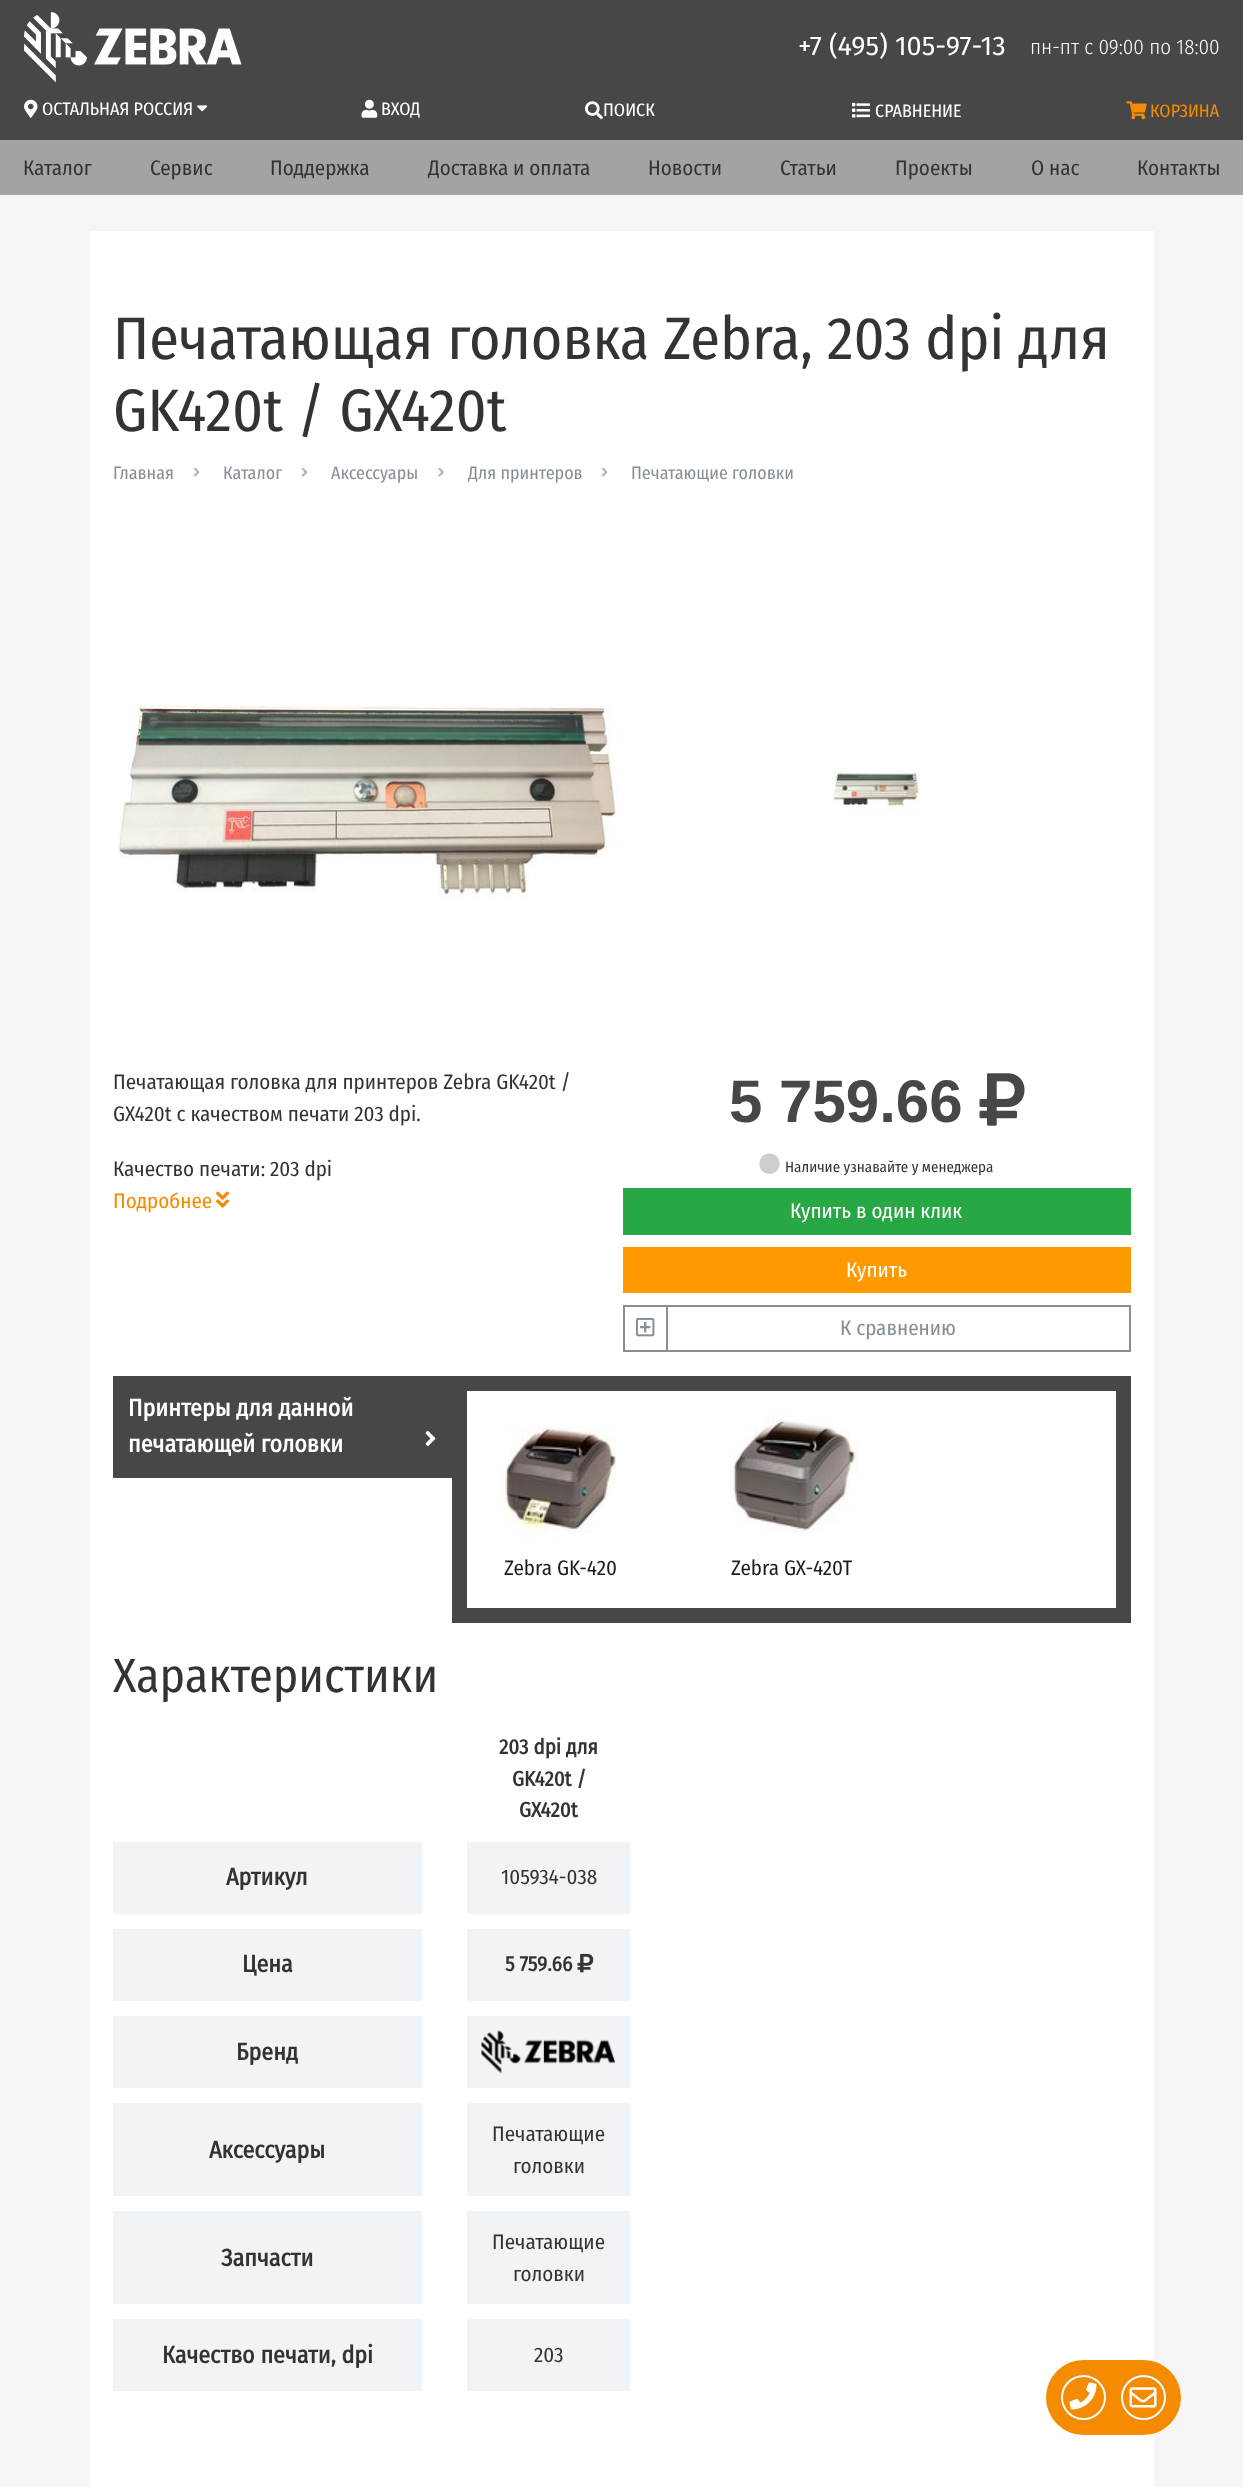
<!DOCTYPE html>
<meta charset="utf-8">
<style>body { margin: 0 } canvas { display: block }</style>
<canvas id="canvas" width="1243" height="2487"></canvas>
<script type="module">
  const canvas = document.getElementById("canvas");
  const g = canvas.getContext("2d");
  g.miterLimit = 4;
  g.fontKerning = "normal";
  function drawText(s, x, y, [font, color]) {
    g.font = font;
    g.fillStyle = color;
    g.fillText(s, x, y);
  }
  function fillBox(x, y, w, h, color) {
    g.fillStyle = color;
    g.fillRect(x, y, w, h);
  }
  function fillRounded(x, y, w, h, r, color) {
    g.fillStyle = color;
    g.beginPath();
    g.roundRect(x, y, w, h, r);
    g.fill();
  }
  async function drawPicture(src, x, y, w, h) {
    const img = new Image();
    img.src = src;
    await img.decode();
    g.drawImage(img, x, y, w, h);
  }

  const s1 = ["27px Fira Sans", "#FFFFFF"];
  const s2 = ["300 21px Fira Sans Condensed", "#FFFFFF"];
  const s3 = ["18px Fira Sans Condensed", "#FFFFFF"];
  const s4 = ["18px Fira Sans Condensed", "#F48B00"];
  const s5 = ["21px Fira Sans Condensed", "#333333"];
  const s6 = ["60px Fira Sans Condensed", "#333333"];
  const s7 = ["18px Fira Sans Condensed", "#868E96"];
  const s8 = ["21px Fira Sans Condensed", "#F48B00"];
  const s9 = ["bold 60px Liberation Sans", "#474747"];
  const s10 = ["15px Fira Sans Condensed", "#333333"];
  const s11 = ["21px Fira Sans Condensed", "#FFFFFF"];
  const s12 = ["21px Fira Sans Condensed", "#868E96"];
  const s13 = ["bold 24px Fira Sans Condensed", "#FFFFFF"];
  const s14 = ["21px Fira Sans Condensed", "#1D1D1B"];
  const s15 = ["48px Fira Sans Condensed", "#333333"];
  const s16 = ["bold 24px Fira Sans Condensed", "#333333"];
  const s17 = ["bold 21px Fira Sans Condensed", "#333333"];

  fillBox(0, 0, 1243, 2487, "#F5F5F5");
  fillBox(0, 0, 1243, 140, "#474747");
  await drawPicture("pic1.png", 24, 12, 218, 71);
  drawText("+7 (495) 105-97-13", 798, 55, s1);
  drawText("пн-пт с 09:00 по 18:00", 1030, 54, s2);
  await drawPicture("pic2.png", 24, 99, 14, 19);
  drawText("ОСТАЛЬНАЯ РОССИЯ", 42, 115, s3);
  await drawPicture("pic3.png", 197, 105, 11, 7);
  await drawPicture("pic4.png", 361, 99, 17, 19);
  drawText("ВХОД", 381, 115, s3);
  await drawPicture("pic5.png", 585, 101, 18, 19);
  drawText("ПОИСК", 603, 116, s3);
  await drawPicture("pic6.png", 852, 102, 18, 16);
  drawText("СРАВНЕНИЕ", 875, 117, s3);
  await drawPicture("pic7.png", 1126, 101, 21, 19);
  drawText("КОРЗИНА", 1150, 117, s4);
  fillBox(0, 140, 1243, 55, "#A3A3A3");
  drawText("Каталог", 23, 175, s5);
  drawText("Сервис", 150, 175, s5);
  drawText("Поддержка", 270, 175, s5);
  drawText("Доставка и оплата", 428, 175, s5);
  drawText("Новости", 648, 175, s5);
  drawText("Статьи", 780, 175, s5);
  drawText("Проекты", 895, 175, s5);
  drawText("О нас", 1031, 175, s5);
  drawText("Контакты", 1137, 175, s5);
  fillBox(90, 231, 1064, 2256, "#FFFFFF");
  drawText("Печатающая головка Zebra, 203 dpi для", 113, 359, s6);
  drawText("GK420t / GX420t", 113, 431, s6);
  drawText("Главная", 113, 479, s7);
  await drawPicture("pic8.png", 193, 467, 7, 11);
  drawText("Каталог", 223, 479, s7);
  await drawPicture("pic8.png", 301, 467, 7, 11);
  drawText("Аксессуары", 331, 479, s7);
  await drawPicture("pic9.png", 437, 467, 7, 11);
  drawText("Для принтеров", 468, 479, s7);
  await drawPicture("pic8.png", 601, 467, 7, 11);
  drawText("Печатающие головки", 631, 479, s7);
  await drawPicture("pic10.png", 117, 703, 502, 197);
  await drawPicture("pic11.png", 832, 770, 88, 44);
  drawText("Печатающая головка для принтеров Zebra GK420t /", 113, 1089, s5);
  drawText("GX420t с качеством печати 203 dpi.", 113, 1121, s5);
  drawText("Качество печати: 203 dpi", 113, 1176, s5);
  drawText("Подробнее", 113, 1208, s8);
  await drawPicture("pic12.png", 216, 1191, 14, 17);
  drawText("5 759.66", 729, 1122, s9);
  await drawPicture("pic13.png", 979, 1073, 46, 53);
  g.fillStyle = "#CDCDCD";
  g.beginPath();
  g.moveTo(769.5, 1153.5);
  g.bezierCurveTo(756, 1153.5, 756, 1174, 769.5, 1174);
  g.bezierCurveTo(783, 1174, 783, 1153.5, 769.5, 1153.5);
  g.closePath();
  g.fill();
  drawText("Наличие узнавайте у менеджера", 785, 1172, s10);
  fillBox(623, 1188, 508, 47, "#28A745");
  drawText("Купить в один клик", 790, 1218, s11);
  fillBox(623, 1247, 508, 46, "#FE9900");
  drawText("Купить", 846, 1277, s11);
  g.strokeStyle = "#868E96";
  g.lineWidth = 2;
  g.strokeRect(624, 1306, 43, 45);
  await drawPicture("pic14.png", 636, 1317, 19, 20);
  g.strokeRect(667, 1306, 463, 45);
  drawText("К сравнению", 840, 1335, s12);
  fillBox(113, 1376, 339, 102, "#474747");
  drawText("Принтеры для данной", 128, 1416, s13);
  drawText("печатающей головки", 128, 1452, s13);
  await drawPicture("pic15.png", 425, 1431, 11, 15);
  g.strokeStyle = "#474747";
  g.lineWidth = 15;
  g.strokeRect(459.5, 1383.5, 664, 232);
  await drawPicture("pic16.png", 498, 1426, 119, 117);
  drawText("Zebra GK-420", 504, 1575, s14);
  await drawPicture("pic17.png", 729, 1415, 130, 118);
  drawText("Zebra GX-420T", 731, 1575, s14);
  drawText("Характеристики", 113, 1692, s15);
  fillBox(113, 1842, 309, 72, "#F1F4F6");
  drawText("Артикул", 226, 1885, s16);
  fillBox(113, 1929, 309, 72, "#F1F4F6");
  drawText("Цена", 242, 1972, s16);
  fillBox(113, 2016, 309, 72, "#F1F4F6");
  drawText("Бренд", 236, 2060, s16);
  fillBox(113, 2103, 309, 93, "#F1F4F6");
  drawText("Аксессуары", 209, 2158, s16);
  fillBox(113, 2211, 309, 93, "#F1F4F6");
  drawText("Запчасти", 221, 2266, s16);
  fillBox(113, 2319, 309, 72, "#F1F4F6");
  drawText("Качество печати, dpi", 162, 2363, s16);
  drawText("203 dpi для", 499, 1754, s17);
  drawText("GK420t /", 512, 1786, s17);
  drawText("GX420t", 519, 1817, s17);
  fillBox(467, 1842, 163, 72, "#F1F4F6");
  drawText("105934-038", 501, 1884, s5);
  fillBox(467, 1929, 163, 72, "#F1F4F6");
  drawText("5 759.66", 505, 1971, s17);
  await drawPicture("pic18.png", 577, 1953, 17, 20);
  fillBox(467, 2016, 163, 72, "#F1F4F6");
  await drawPicture("pic19.png", 481, 2030, 135, 44);
  fillBox(467, 2103, 163, 93, "#F1F4F6");
  drawText("Печатающие", 492, 2141, s5);
  drawText("головки", 513, 2173, s5);
  fillBox(467, 2211, 163, 93, "#F1F4F6");
  drawText("Печатающие", 492, 2249, s5);
  drawText("головки", 513, 2281, s5);
  fillBox(467, 2319, 163, 72, "#F1F4F6");
  drawText("203", 534, 2362, s5);
  fillRounded(1046, 2360, 135, 75, 37.5, "#F48B00");
  g.beginPath();
  g.arc(1083.5, 2397.5, 21.5, 0, Math.PI * 2);
  g.strokeStyle = "#FFFFFF";
  g.lineWidth = 2;
  g.stroke();
  await drawPicture("pic20.png", 1069, 2382, 28, 28);
  g.beginPath();
  g.arc(1143.5, 2397.5, 21.5, 0, Math.PI * 2);
  g.stroke();
  await drawPicture("pic21.png", 1129, 2387, 28, 21);
</script>
